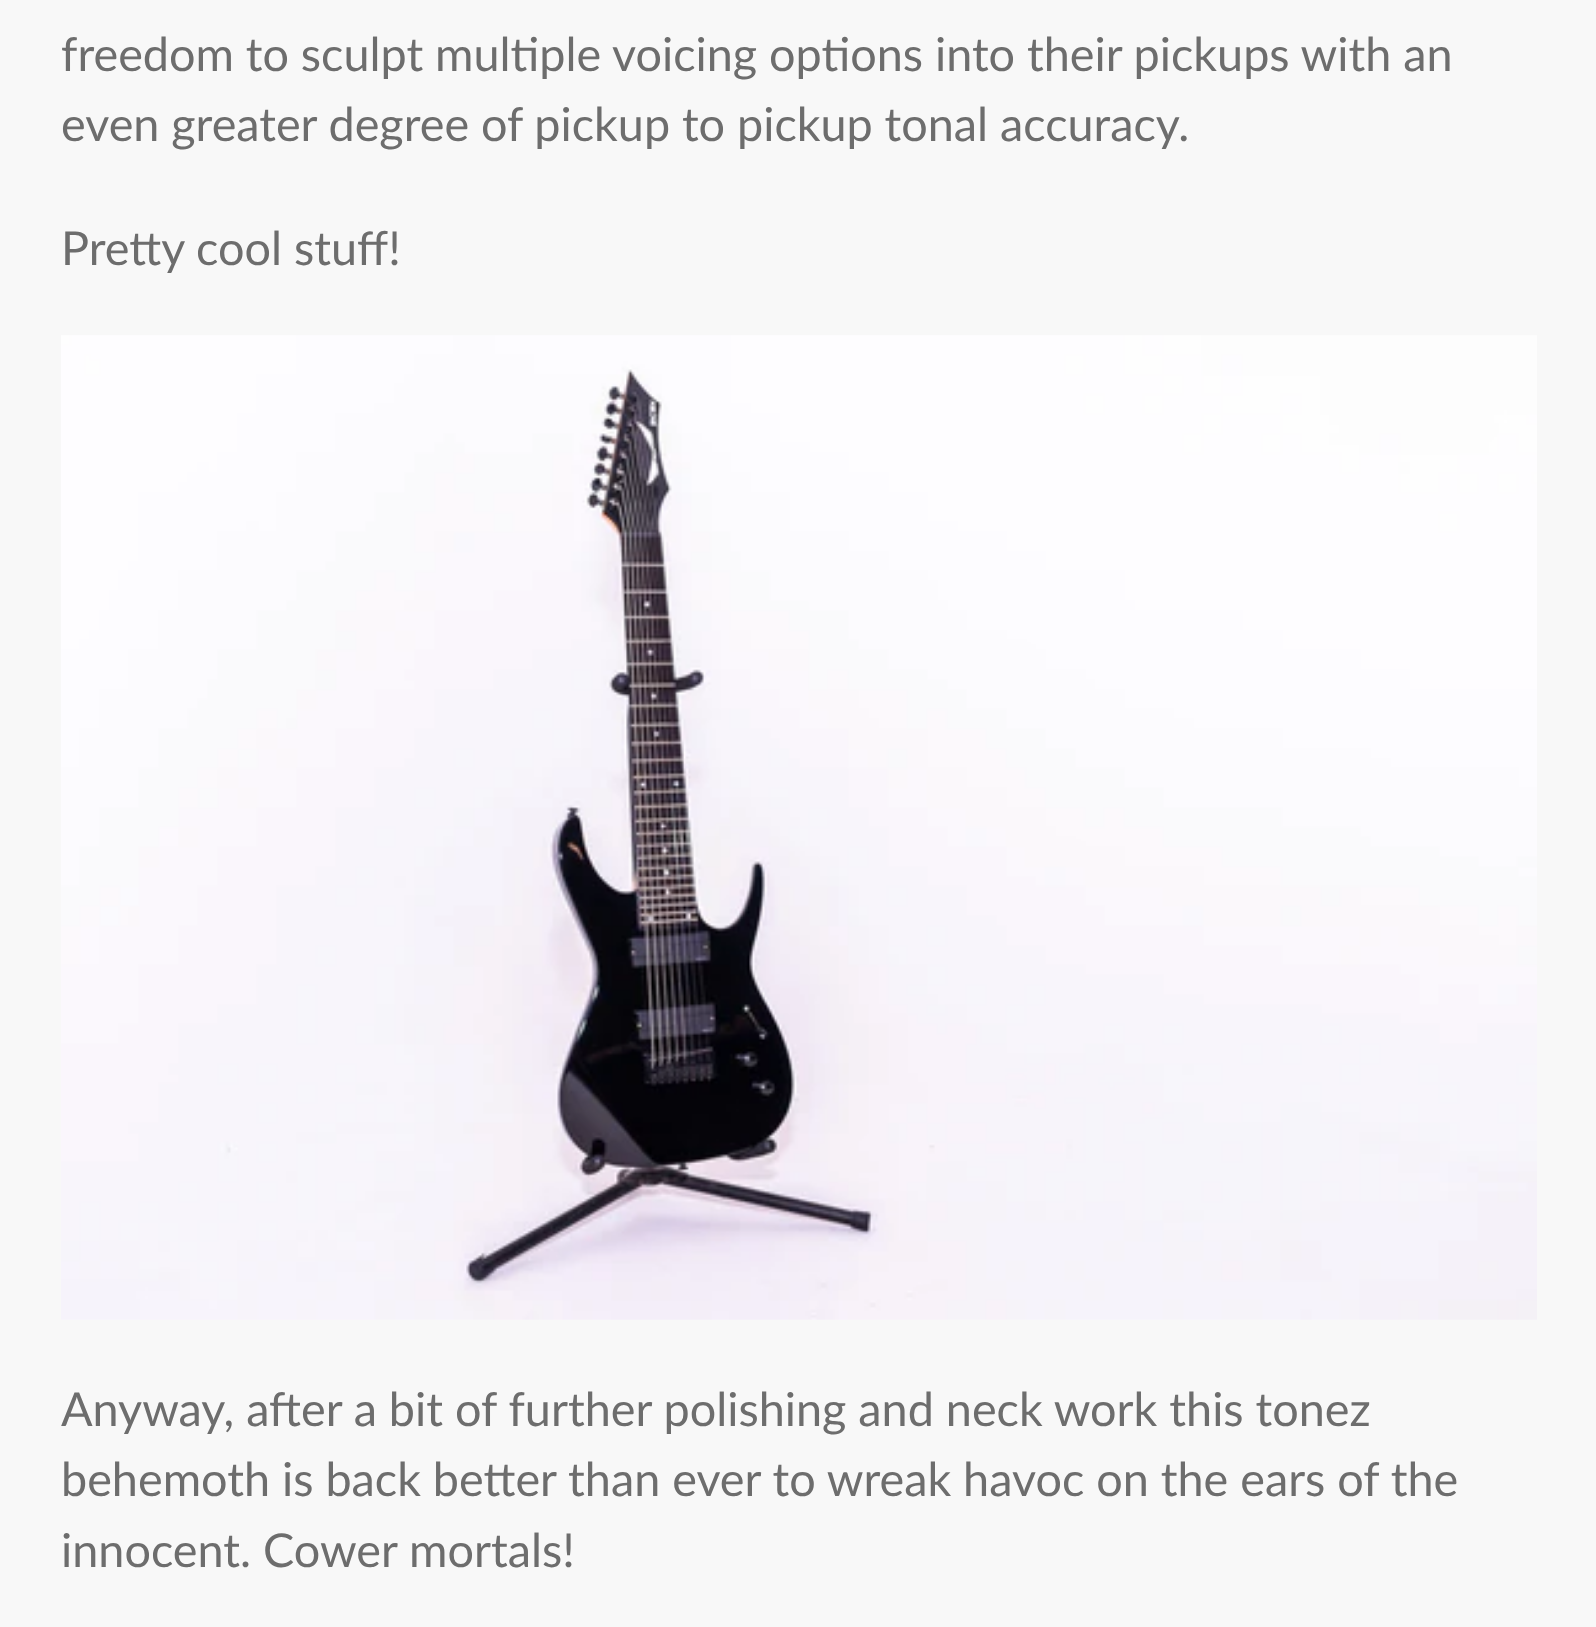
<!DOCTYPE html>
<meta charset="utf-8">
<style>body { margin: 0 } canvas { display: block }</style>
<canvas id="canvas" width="1596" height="1627"></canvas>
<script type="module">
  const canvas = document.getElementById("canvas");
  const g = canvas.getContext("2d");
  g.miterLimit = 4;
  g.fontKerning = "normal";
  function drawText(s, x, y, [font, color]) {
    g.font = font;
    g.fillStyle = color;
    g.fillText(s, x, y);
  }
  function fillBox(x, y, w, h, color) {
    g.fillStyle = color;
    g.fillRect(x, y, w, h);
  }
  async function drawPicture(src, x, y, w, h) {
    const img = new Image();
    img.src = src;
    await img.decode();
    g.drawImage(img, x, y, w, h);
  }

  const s1 = ["46.75px Lato", "#6D6D6D"];

  fillBox(0, 0, 1596, 1627, "#F8F8F8");
  g.wordSpacing = "-0.1px";
  drawText("freedom to sculpt multiple voicing options into their pickups with an", 61, 71, s1);
  drawText("even greater degree of pickup to pickup tonal accuracy.", 61, 141, s1);
  g.wordSpacing = "0px";
  drawText("Pretty cool stuff!", 61, 265, s1);
  await drawPicture("pic1.png", 61, 335, 1476, 985);
  drawText("Anyway, after a bit of further polishing and neck work this tonez", 61, 1426, s1);
  drawText("behemoth is back better than ever to wreak havoc on the ears of the", 61, 1496, s1);
  drawText("innocent. Cower mortals!", 61, 1567, s1);
</script>
